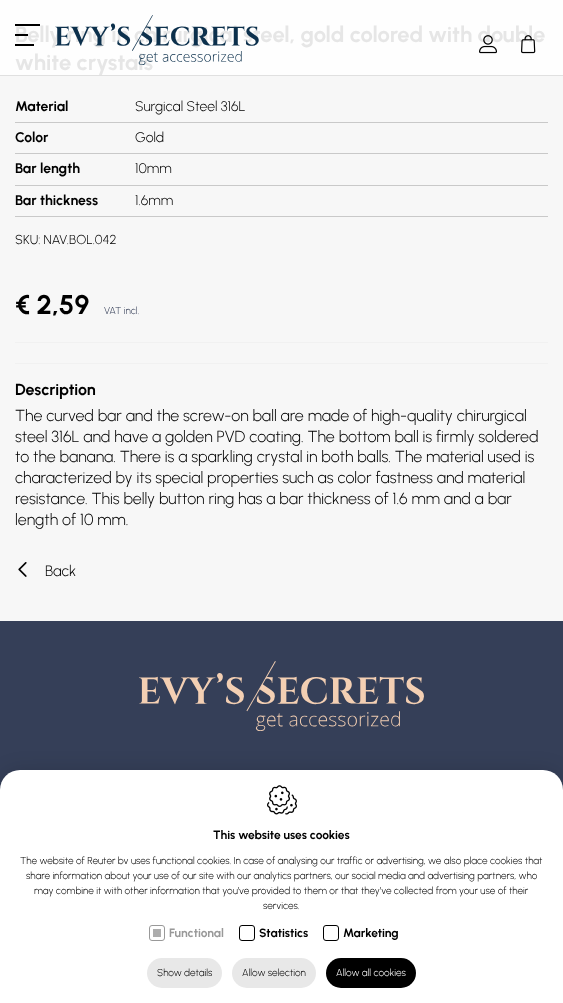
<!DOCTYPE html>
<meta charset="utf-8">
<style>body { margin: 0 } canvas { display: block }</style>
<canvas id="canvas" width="563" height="1003"></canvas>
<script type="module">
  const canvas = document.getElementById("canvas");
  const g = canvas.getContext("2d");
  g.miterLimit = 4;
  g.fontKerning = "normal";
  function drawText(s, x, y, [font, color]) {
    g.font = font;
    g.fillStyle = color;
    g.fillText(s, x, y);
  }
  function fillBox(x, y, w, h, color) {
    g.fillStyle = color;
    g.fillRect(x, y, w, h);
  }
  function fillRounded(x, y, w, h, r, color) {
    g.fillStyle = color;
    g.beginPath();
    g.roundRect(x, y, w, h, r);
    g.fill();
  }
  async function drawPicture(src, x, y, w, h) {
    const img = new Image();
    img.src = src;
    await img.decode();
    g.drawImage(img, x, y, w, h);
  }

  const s1 = ["bold 22px Urbanist", "#E6E6E6"];
  const s2 = ["bold 14px Urbanist", "#000000"];
  const s3 = ["300 14px Urbanist", "#000000"];
  const s4 = ["300 13px Urbanist", "#000000"];
  const s5 = ["bold 27px Urbanist", "#000000"];
  const s6 = ["300 10px Urbanist", "#353F58"];
  const s7 = ["bold 16px Urbanist", "#000000"];
  const s8 = ["300 16px Urbanist", "#000000"];
  const s9 = ["300 15px Urbanist", "#000000"];
  const s10 = ["bold 12px Urbanist", "#000000"];
  const s11 = ["300 10px Urbanist", "#000000"];
  const s12 = ["bold 12px Urbanist", "#999999"];
  const s13 = ["300 10px Urbanist", "#FFFFFF"];

  fillBox(0, 0, 563, 1003, "#F7F7F7");
  fillBox(0, 0, 563, 75, "#FEFEFE");
  drawText("white crystals", 15, 70, s1);
  fillBox(0, 75, 563, 1, "#E0E0E0");
  drawText("Belly ring in chirurgical steel, gold colored with double", 15, 42, s1);
  fillBox(15, 24, 25, 2, "#000000");
  fillBox(15, 34, 13, 2, "#000000");
  fillBox(15, 44, 19, 2, "#000000");
  await drawPicture("pic1.png", 55, 15, 204, 50);
  await drawPicture("pic2.png", 479, 35, 18, 19);
  await drawPicture("pic3.png", 521, 35, 15, 19);
  fillBox(15, 122, 533, 1, "#C9C9C9");
  drawText("Material", 15, 111, s2);
  drawText("Surgical Steel 316L", 135, 111, s3);
  fillBox(15, 153, 533, 1, "#C9C9C9");
  drawText("Color", 15, 142, s2);
  drawText("Gold", 135, 142, s3);
  fillBox(15, 185, 533, 1, "#C9C9C9");
  drawText("Bar length", 15, 173, s2);
  drawText("10mm", 135, 173, s3);
  fillBox(15, 216, 533, 1, "#C9C9C9");
  drawText("Bar thickness", 15, 205, s2);
  drawText("1.6mm", 135, 205, s3);
  drawText("SKU: NAV.BOL.042", 15, 244, s4);
  drawText("€ 2,59", 15, 314, s5);
  drawText("VAT incl.", 104, 314, s6);
  fillBox(15, 342, 533, 1, "#F1F1F1");
  fillBox(15, 363, 533, 1, "#F1F1F1");
  drawText("Description", 15, 395, s7);
  drawText("The curved bar and the screw-on ball are made of high-quality chirurgical", 15, 421, s8);
  drawText("steel 316L and have a golden PVD coating. The bottom ball is firmly soldered", 15, 442, s8);
  drawText("to the banana. There is a sparkling crystal in both balls. The material used is", 15, 462, s8);
  drawText("characterized by its special properties such as color fastness and material", 15, 483, s8);
  drawText("resistance. This belly button ring has a bar thickness of 1.6 mm and a bar", 15, 504, s8);
  drawText("length of 10 mm.", 15, 525, s8);
  await drawPicture("pic4.png", 18, 562, 9, 15);
  drawText("Back", 45, 576, s9);
  fillBox(0, 621, 563, 169, "#353F58");
  await drawPicture("pic5.png", 139, 661, 285, 70);
  g.fillStyle = "rgba(0, 0, 0, 0.15)";
  g.filter = "blur(10px)";
  g.beginPath();
  g.roundRect(1, 771, 561, 231, 19);
  g.fill();
  g.filter = "none";
  g.fillStyle = "#FFFFFF";
  g.beginPath();
  g.roundRect(0, 770, 563, 233, [20, 20, 0, 0]);
  g.fill();
  await drawPicture("pic6.png", 267, 785, 30, 30);
  drawText("This website uses cookies", 213, 839, s10);
  drawText("The website of Reuter bv uses functional cookies. In case of analysing our traffic or advertising, we also place cookies that", 20, 864, s11);
  drawText("share information about your use of our site with our analytics partners, our social media and advertising partners, who", 26, 879, s11);
  drawText("may combine it with other information that you’ve provided to them or that they’ve collected from your use of their", 34, 894, s11);
  drawText("services.", 263, 909, s11);
  g.beginPath();
  g.roundRect(149.5, 925.5, 15, 15, 2.5);
  g.strokeStyle = "#999999";
  g.stroke();
  drawText("Functional", 169, 937, s12);
  fillBox(153, 929, 8, 8, "#ADADAD");
  g.beginPath();
  g.roundRect(239.5, 925.5, 15, 15, 2.5);
  g.strokeStyle = "#000000";
  g.stroke();
  drawText("Statistics", 259, 937, s10);
  g.beginPath();
  g.roundRect(323.5, 925.5, 15, 15, 2.5);
  g.stroke();
  drawText("Marketing", 343, 937, s10);
  fillRounded(147, 958, 75, 30, 15, "#E8E8E8");
  drawText("Show details", 157, 976, s11);
  fillRounded(232, 958, 84, 30, 15, "#E8E8E8");
  drawText("Allow selection", 242, 976, s11);
  fillRounded(326, 958, 90, 30, 15, "#000000");
  drawText("Allow all cookies", 336, 976, s13);
</script>
